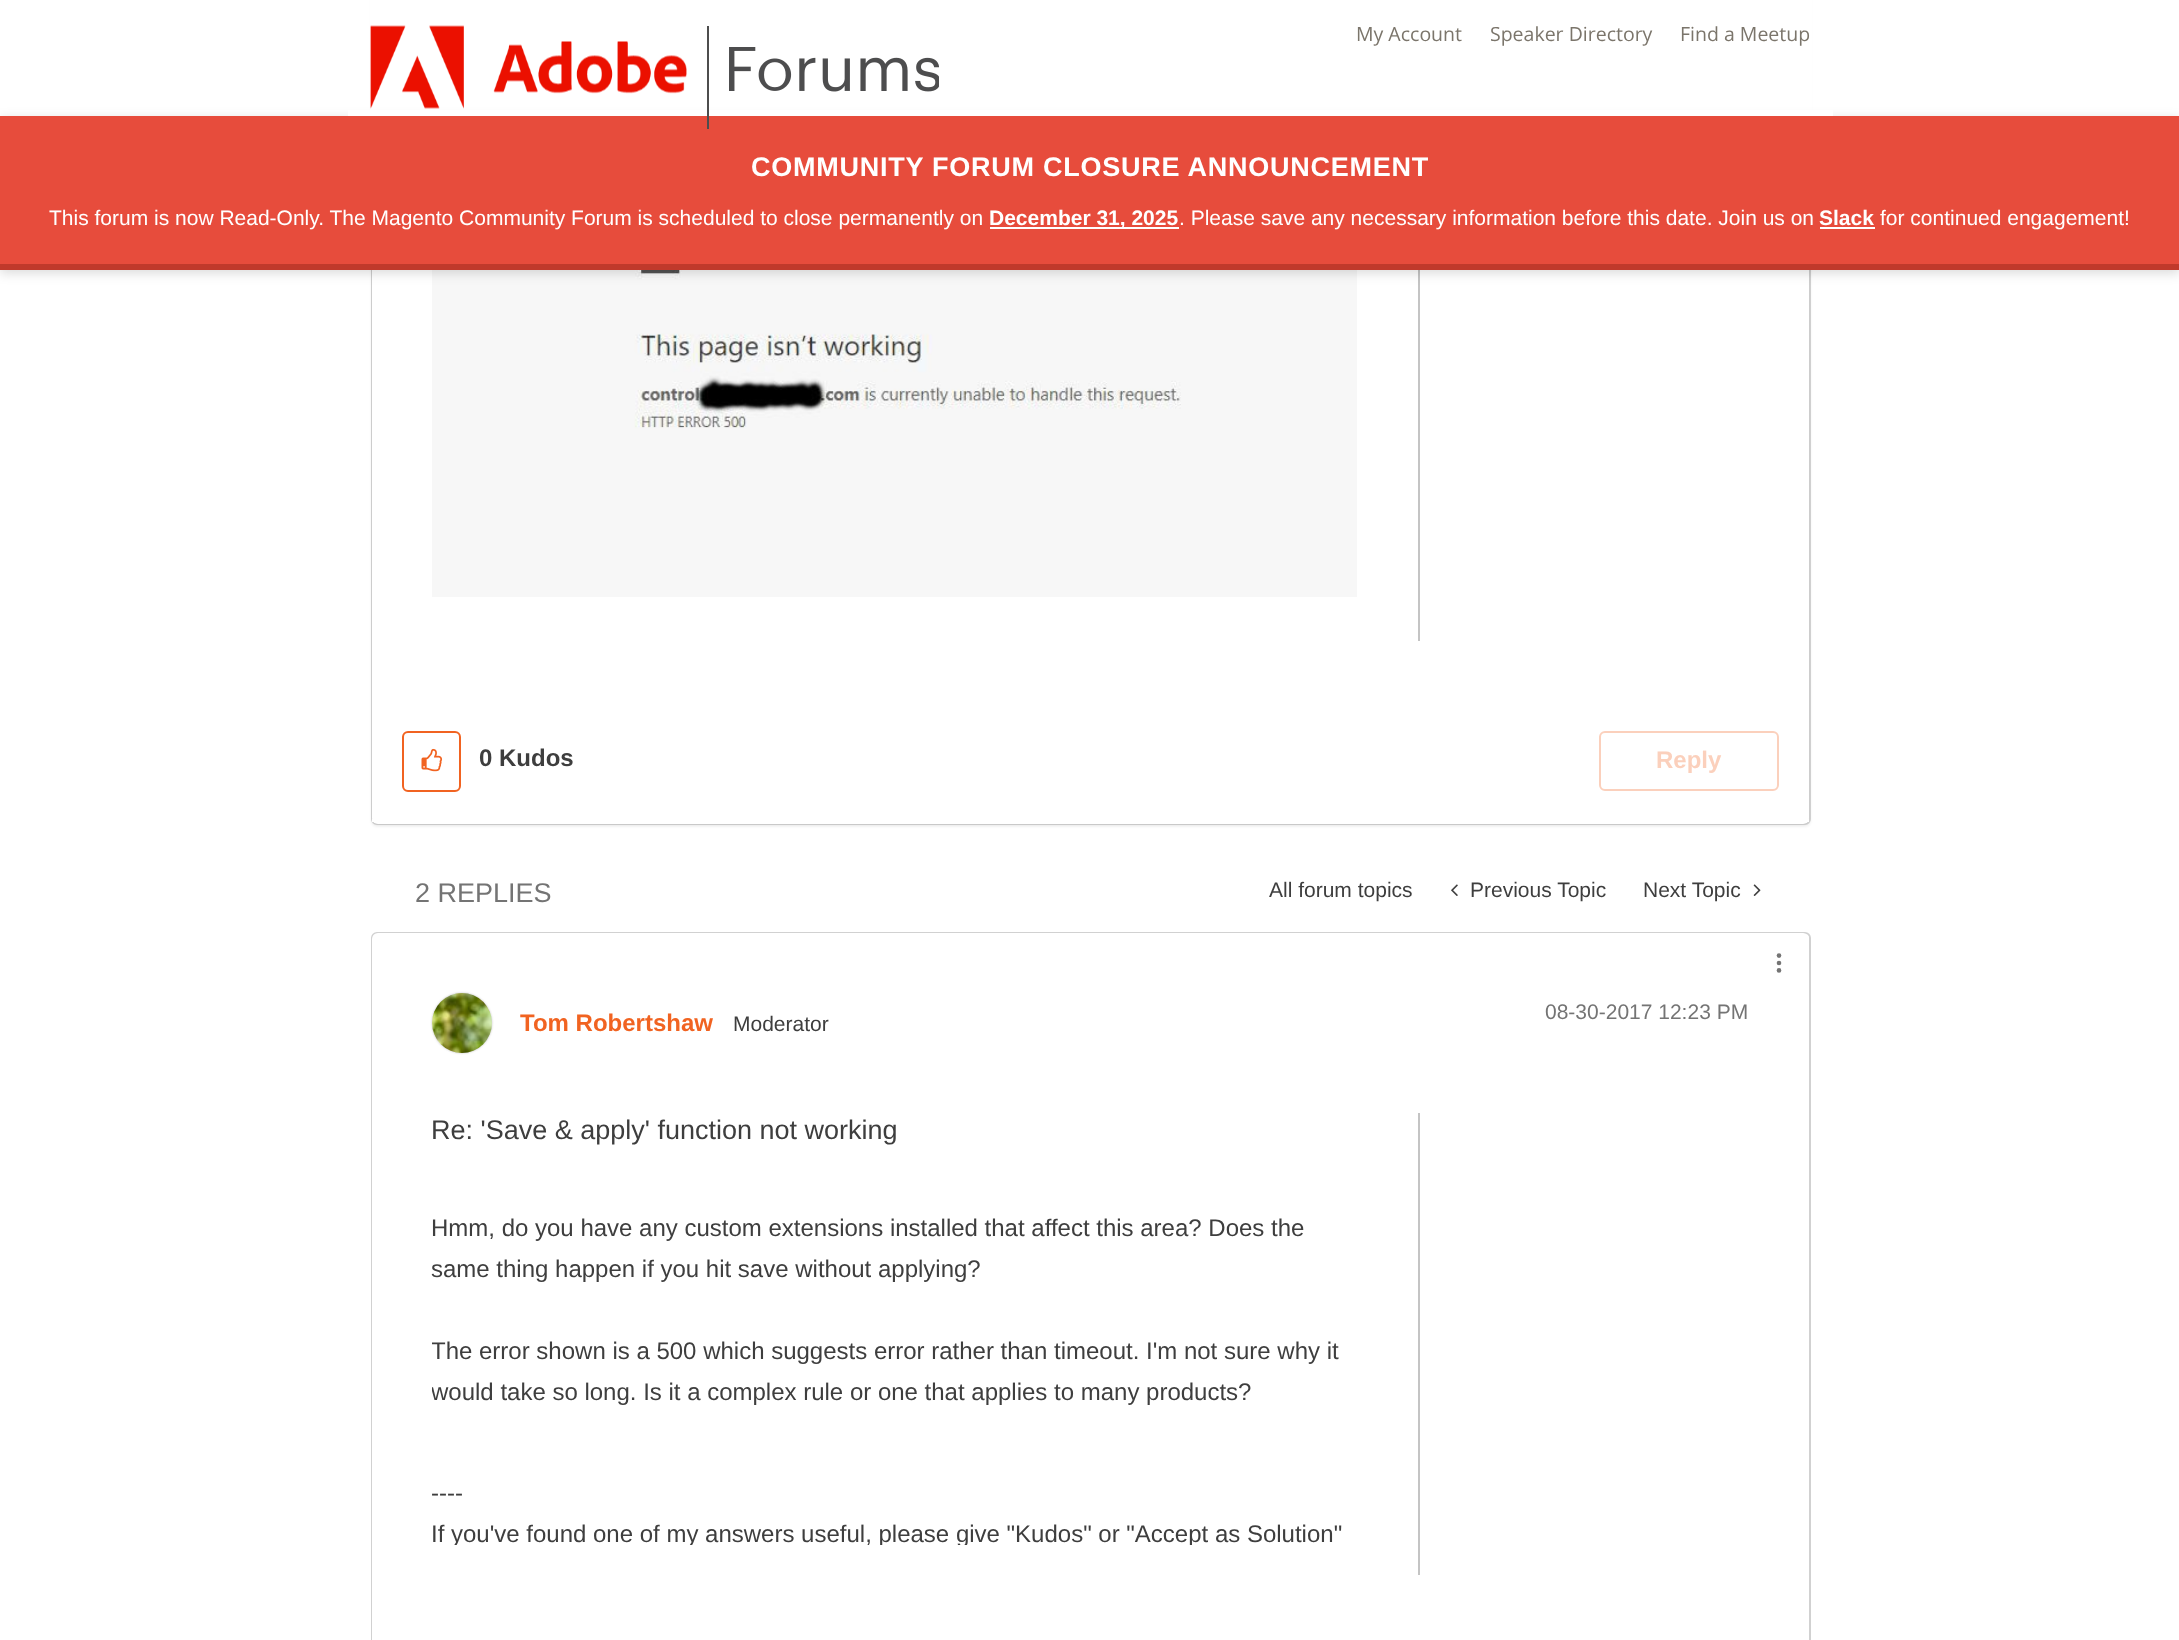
<!DOCTYPE html>
<meta charset="utf-8">
<style>body { margin: 0 } canvas { display: block }</style>
<canvas id="canvas" width="2179" height="1640"></canvas>
<script type="module">
  const canvas = document.getElementById("canvas");
  const g = canvas.getContext("2d");
  g.miterLimit = 4;
  g.fontKerning = "normal";
  function drawText(s, x, y, [font, color]) {
    g.font = font;
    g.fillStyle = color;
    g.fillText(s, x, y);
  }
  function fillBox(x, y, w, h, color) {
    g.fillStyle = color;
    g.fillRect(x, y, w, h);
  }
  function fillRounded(x, y, w, h, r, color) {
    g.fillStyle = color;
    g.beginPath();
    g.roundRect(x, y, w, h, r);
    g.fill();
  }
  async function drawPicture(src, x, y, w, h) {
    const img = new Image();
    img.src = src;
    await img.decode();
    g.drawImage(img, x, y, w, h);
  }

  const s1 = ["19.5px Open Sans", "#7B756B"];
  const s2 = ["bold 27px Liberation Sans", "#FFFFFF"];
  const s3 = ["21px Liberation Sans", "#FFFFFF"];
  const s4 = ["bold 21px Liberation Sans", "#FFFFFF"];
  const s5 = ["bold 24px Liberation Sans", "#3E3E3E"];
  const s6 = ["bold 24px Liberation Sans", "#FBD0BC"];
  const s7 = ["27px Liberation Sans", "#747474"];
  const s8 = ["21px Liberation Sans", "#3E3E3E"];
  const s9 = ["bold 24px Liberation Sans", "#F16321"];
  const s10 = ["21px Liberation Sans", "#747474"];
  const s11 = ["27px Liberation Sans", "#3E3E3E"];
  const s12 = ["24px Liberation Sans", "#3E3E3E"];

  fillBox(0, 0, 2179, 1640, "#FFFFFF");
  g.fillStyle = "rgba(0, 0, 0, 0.05)";
  g.filter = "blur(1px)";
  g.beginPath();
  g.roundRect(371, -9, 1440, 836, 6);
  g.fill();
  g.filter = "none";
  g.beginPath();
  g.roundRect(372, -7, 1438, 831, 5);
  g.strokeStyle = "#D1D1D1";
  g.lineWidth = 2;
  g.stroke();
  g.filter = "blur(1px)";
  g.beginPath();
  g.roundRect(372, -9, 1437, 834, 6);
  g.fill();
  g.filter = "none";
  fillRounded(372, -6, 1437, 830, 6, "#FFFFFF");
  fillBox(370, 0, 1442, 116, "#FFFFFF");
  fillBox(1418, 270, 2, 371, "#C4C4C4");
  await drawPicture("pic3.png", 432, 270, 925, 327);
  g.fillStyle = "rgba(0, 0, 0, 0.15)";
  g.filter = "blur(6px)";
  g.beginPath();
  g.rect(0, 119, 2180, 154);
  g.fill();
  g.filter = "none";
  fillBox(348, 110, 1485, 6, "#FFFFFF");
  await drawPicture("pic1.png", 370, 25, 317, 84);
  fillBox(0, 116, 2179, 148, "#E74C3C");
  fillBox(707, 26, 2, 103, "#4D4D4D");
  await drawPicture("pic2.png", 729, 47, 210, 45);
  drawText("My Account", 1356, 41, s1);
  drawText("Speaker Directory", 1490, 41, s1);
  drawText("Find a Meetup", 1680, 41, s1);
  fillBox(0, 264, 2179, 6, "#C0392B");
  g.letterSpacing = "0.75px";
  drawText("COMMUNITY FORUM CLOSURE ANNOUNCEMENT", 751, 176, s2);
  g.letterSpacing = "0px";
  drawText("This forum is now Read-Only. The Magento Community Forum is scheduled to close permanently on", 49, 225, s3);
  fillBox(990, 227, 189, 2, "#FFFFFF");
  drawText("December 31, 2025", 989, 225, s4);
  drawText(". Please save any necessary information before this date. Join us on", 1179, 225, s3);
  drawText("Slack", 1819, 225, s4);
  fillBox(1820, 227, 55, 2, "#FFFFFF");
  drawText("for continued engagement!", 1880, 225, s3);
  fillBox(372, 819, 1437, 3, "#FFFFFF");
  g.beginPath();
  g.roundRect(403, 732, 57, 59, 5);
  g.strokeStyle = "#F16321";
  g.stroke();
  await drawPicture("pic4.png", 421, 748, 22, 24);
  drawText("0 Kudos", 479, 766, s5);
  g.beginPath();
  g.roundRect(1600, 732, 178, 58, 5);
  g.strokeStyle = "#FBD0BC";
  g.stroke();
  drawText("Reply", 1656, 768, s6);
  drawText("2 REPLIES", 415, 902, s7);
  drawText("All forum topics", 1269, 897, s8);
  await drawPicture("pic5.png", 1451, 884, 7, 12);
  drawText("Previous Topic", 1470, 897, s8);
  drawText("Next Topic", 1643, 897, s8);
  await drawPicture("pic6.png", 1753, 884, 8, 12);
  g.beginPath();
  g.roundRect(372, 933, 1438, 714, 5);
  g.strokeStyle = "#D1D1D1";
  g.stroke();
  fillRounded(372, 933, 1437, 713, 6, "#FFFFFF");
  g.fillStyle = "#C4C4C4";
  g.filter = "blur(1px)";
  g.beginPath();
  g.roundRect(432, 993, 60, 60, 30);
  g.fill();
  g.filter = "none";
  await drawPicture("pic7.png", 432, 993, 60, 60);
  drawText("Tom Robertshaw", 520, 1031, s9);
  drawText("Moderator", 733, 1031, s8);
  g.fillStyle = "#747474";
  g.beginPath();
  g.arc(1779, 955.6, 2.3, 0, Math.PI * 2);
  g.fill();
  g.beginPath();
  g.arc(1779, 963, 2.3, 0, Math.PI * 2);
  g.fill();
  g.beginPath();
  g.arc(1779, 970.4, 2.3, 0, Math.PI * 2);
  g.fill();
  drawText("08-30-2017 12:23 PM", 1545, 1019, s10);
  fillBox(1418, 1113, 2, 462, "#C4C4C4");
  drawText("Re: 'Save & apply' function not working", 431, 1139, s11);
  drawText("Hmm, do you have any custom extensions installed that affect this area? Does the", 431, 1236, s12);
  drawText("same thing happen if you hit save without applying?", 431, 1277, s12);
  g.save();
  g.beginPath();
  g.rect(432, 1208, 926, 352);
  g.clip();
  drawText("The error shown is a 500 which suggests error rather than timeout. I'm not sure why it", 431, 1359, s12);
  drawText("would take so long. Is it a complex rule or one that applies to many products?", 431, 1400, s12);
  g.restore();
  drawText("----", 431, 1501, s12);
  g.save();
  g.beginPath();
  g.rect(432, 1473, 926, 72);
  g.clip();
  drawText("If you've found one of my answers useful, please give \"Kudos\" or \"Accept as Solution\"", 431, 1542, s12);
  g.restore();
</script>
